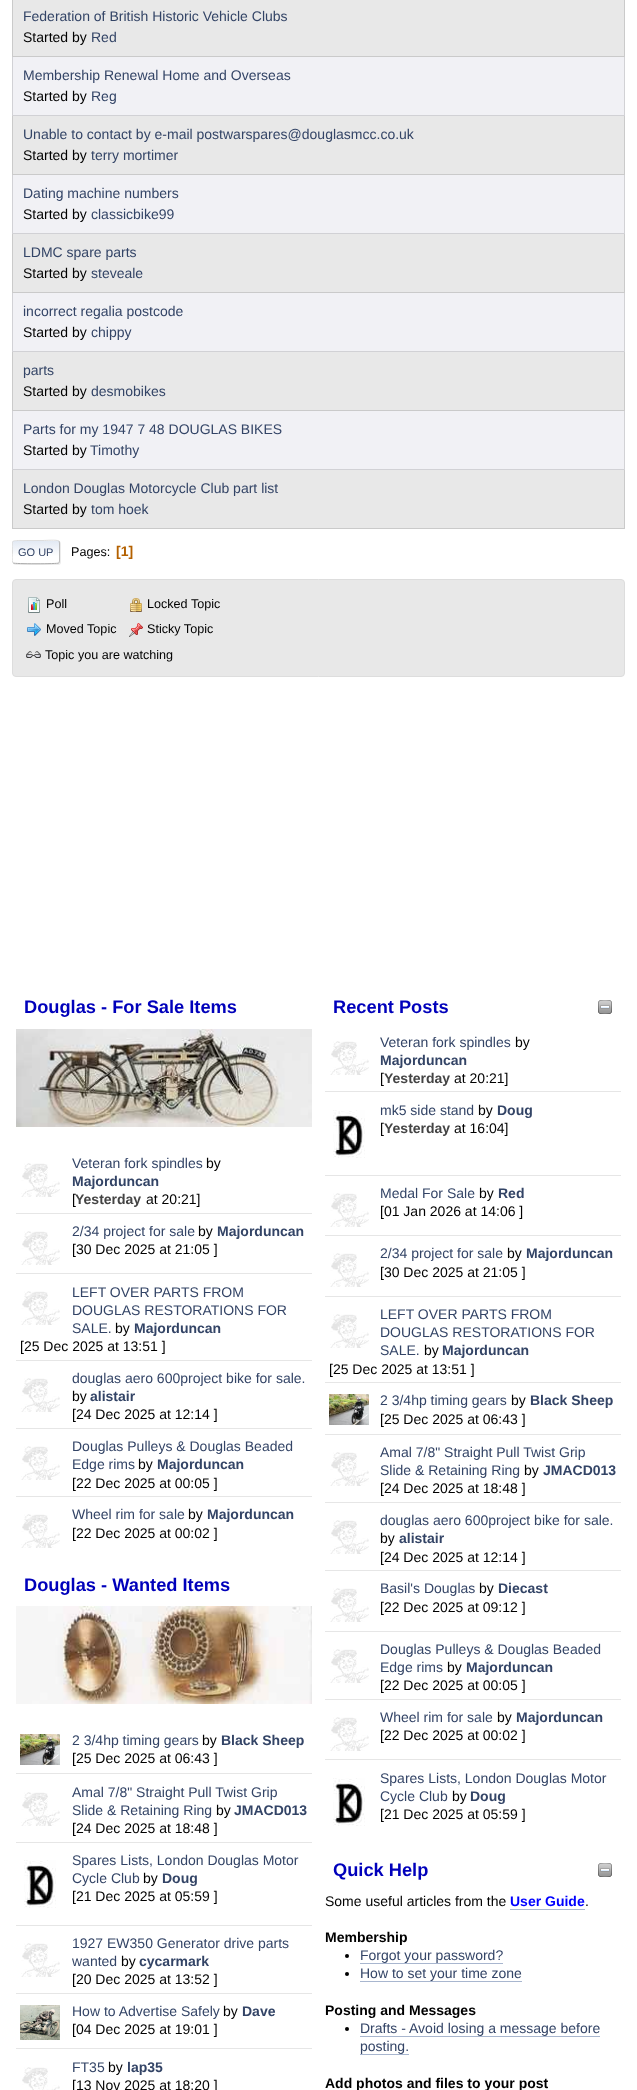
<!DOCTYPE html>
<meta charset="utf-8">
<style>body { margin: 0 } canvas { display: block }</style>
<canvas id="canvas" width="637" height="2090"></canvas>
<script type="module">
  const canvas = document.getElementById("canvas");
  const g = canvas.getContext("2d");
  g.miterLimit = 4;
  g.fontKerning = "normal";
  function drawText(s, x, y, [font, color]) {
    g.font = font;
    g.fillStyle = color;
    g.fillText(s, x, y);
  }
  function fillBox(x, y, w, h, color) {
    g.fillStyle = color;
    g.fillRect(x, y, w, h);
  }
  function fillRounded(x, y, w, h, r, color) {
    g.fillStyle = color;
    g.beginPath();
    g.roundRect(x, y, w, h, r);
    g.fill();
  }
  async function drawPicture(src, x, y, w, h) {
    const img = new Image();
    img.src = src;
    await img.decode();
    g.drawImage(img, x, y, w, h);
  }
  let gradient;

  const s1 = ["14px Liberation Sans", "#334466"];
  const s2 = ["14px Liberation Sans", "#000000"];
  const s3 = ["11px Liberation Sans", "#334466"];
  const s4 = ["12.6px Liberation Sans", "#000000"];
  const s5 = ["bold 14px Liberation Sans", "#B46100"];
  const s6 = ["bold 18.25px Liberation Sans", "#0000BB"];
  const s7 = ["bold 14px Liberation Sans", "#334466"];
  const s8 = ["bold 14px Liberation Sans", "#444444"];
  const s9 = ["bold 14px Liberation Sans", "#0000FF"];
  const s10 = ["bold 14px Liberation Sans", "#000000"];

  fillBox(0, 0, 637, 2090, "#FFFFFF");
  fillBox(12, 0, 613, 57, "#E8E8E8");
  g.fillStyle = "#CACACA";
  g.beginPath();
  g.moveTo(625, -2);
  g.lineTo(625, 57);
  g.lineTo(624, 56);
  g.lineTo(624, -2);
  g.closePath();
  g.fill();
  g.fillStyle = "rgba(0, 0, 0, 0.13)";
  g.beginPath();
  g.moveTo(625, 57);
  g.lineTo(12, 57);
  g.lineTo(13, 56);
  g.lineTo(624, 56);
  g.closePath();
  g.fill();
  g.beginPath();
  g.moveTo(12, 57);
  g.lineTo(12, -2);
  g.lineTo(13, -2);
  g.lineTo(13, 56);
  g.closePath();
  g.fill();
  drawText("Federation of British Historic Vehicle Clubs", 23, 21, s1);
  drawText("Started by", 23, 42, s2);
  drawText("Red", 91, 42, s1);
  fillBox(12, 57, 613, 59, "#F1F1F5");
  g.fillStyle = "#D2D2D5";
  g.beginPath();
  g.moveTo(625, 57);
  g.lineTo(625, 116);
  g.lineTo(624, 115);
  g.lineTo(624, 57);
  g.closePath();
  g.fill();
  g.fillStyle = "rgba(0, 0, 0, 0.13)";
  g.beginPath();
  g.moveTo(625, 116);
  g.lineTo(12, 116);
  g.lineTo(13, 115);
  g.lineTo(624, 115);
  g.closePath();
  g.fill();
  g.beginPath();
  g.moveTo(12, 116);
  g.lineTo(12, 57);
  g.lineTo(13, 57);
  g.lineTo(13, 115);
  g.closePath();
  g.fill();
  drawText("Membership Renewal Home and Overseas", 23, 80, s1);
  drawText("Started by", 23, 101, s2);
  drawText("Reg", 91, 101, s1);
  fillBox(12, 116, 613, 59, "#E8E8E8");
  g.fillStyle = "#CACACA";
  g.beginPath();
  g.moveTo(625, 116);
  g.lineTo(625, 175);
  g.lineTo(624, 174);
  g.lineTo(624, 116);
  g.closePath();
  g.fill();
  g.fillStyle = "rgba(0, 0, 0, 0.13)";
  g.beginPath();
  g.moveTo(625, 175);
  g.lineTo(12, 175);
  g.lineTo(13, 174);
  g.lineTo(624, 174);
  g.closePath();
  g.fill();
  g.beginPath();
  g.moveTo(12, 175);
  g.lineTo(12, 116);
  g.lineTo(13, 116);
  g.lineTo(13, 174);
  g.closePath();
  g.fill();
  drawText("Unable to contact by e-mail postwarspares@douglasmcc.co.uk", 23, 139, s1);
  drawText("Started by", 23, 160, s2);
  drawText("terry mortimer", 91, 160, s1);
  fillBox(12, 175, 613, 59, "#F1F1F5");
  g.fillStyle = "#D2D2D5";
  g.beginPath();
  g.moveTo(625, 175);
  g.lineTo(625, 234);
  g.lineTo(624, 233);
  g.lineTo(624, 175);
  g.closePath();
  g.fill();
  g.fillStyle = "rgba(0, 0, 0, 0.13)";
  g.beginPath();
  g.moveTo(625, 234);
  g.lineTo(12, 234);
  g.lineTo(13, 233);
  g.lineTo(624, 233);
  g.closePath();
  g.fill();
  g.beginPath();
  g.moveTo(12, 234);
  g.lineTo(12, 175);
  g.lineTo(13, 175);
  g.lineTo(13, 233);
  g.closePath();
  g.fill();
  drawText("Dating machine numbers", 23, 198, s1);
  drawText("Started by", 23, 219, s2);
  drawText("classicbike99", 91, 219, s1);
  fillBox(12, 234, 613, 59, "#E8E8E8");
  g.fillStyle = "#CACACA";
  g.beginPath();
  g.moveTo(625, 234);
  g.lineTo(625, 293);
  g.lineTo(624, 292);
  g.lineTo(624, 234);
  g.closePath();
  g.fill();
  g.fillStyle = "rgba(0, 0, 0, 0.13)";
  g.beginPath();
  g.moveTo(625, 293);
  g.lineTo(12, 293);
  g.lineTo(13, 292);
  g.lineTo(624, 292);
  g.closePath();
  g.fill();
  g.beginPath();
  g.moveTo(12, 293);
  g.lineTo(12, 234);
  g.lineTo(13, 234);
  g.lineTo(13, 292);
  g.closePath();
  g.fill();
  drawText("LDMC spare parts", 23, 257, s1);
  drawText("Started by", 23, 278, s2);
  drawText("steveale", 91, 278, s1);
  fillBox(12, 293, 613, 59, "#F1F1F5");
  g.fillStyle = "#D2D2D5";
  g.beginPath();
  g.moveTo(625, 293);
  g.lineTo(625, 352);
  g.lineTo(624, 351);
  g.lineTo(624, 293);
  g.closePath();
  g.fill();
  g.fillStyle = "rgba(0, 0, 0, 0.13)";
  g.beginPath();
  g.moveTo(625, 352);
  g.lineTo(12, 352);
  g.lineTo(13, 351);
  g.lineTo(624, 351);
  g.closePath();
  g.fill();
  g.beginPath();
  g.moveTo(12, 352);
  g.lineTo(12, 293);
  g.lineTo(13, 293);
  g.lineTo(13, 351);
  g.closePath();
  g.fill();
  drawText("incorrect regalia postcode", 23, 316, s1);
  drawText("Started by", 23, 337, s2);
  drawText("chippy", 91, 337, s1);
  fillBox(12, 352, 613, 59, "#E8E8E8");
  g.fillStyle = "#CACACA";
  g.beginPath();
  g.moveTo(625, 352);
  g.lineTo(625, 411);
  g.lineTo(624, 410);
  g.lineTo(624, 352);
  g.closePath();
  g.fill();
  g.fillStyle = "rgba(0, 0, 0, 0.13)";
  g.beginPath();
  g.moveTo(625, 411);
  g.lineTo(12, 411);
  g.lineTo(13, 410);
  g.lineTo(624, 410);
  g.closePath();
  g.fill();
  g.beginPath();
  g.moveTo(12, 411);
  g.lineTo(12, 352);
  g.lineTo(13, 352);
  g.lineTo(13, 410);
  g.closePath();
  g.fill();
  drawText("parts", 23, 375, s1);
  drawText("Started by", 23, 396, s2);
  drawText("desmobikes", 91, 396, s1);
  fillBox(12, 411, 613, 59, "#F1F1F5");
  g.fillStyle = "#D2D2D5";
  g.beginPath();
  g.moveTo(625, 411);
  g.lineTo(625, 470);
  g.lineTo(624, 469);
  g.lineTo(624, 411);
  g.closePath();
  g.fill();
  g.fillStyle = "rgba(0, 0, 0, 0.13)";
  g.beginPath();
  g.moveTo(625, 470);
  g.lineTo(12, 470);
  g.lineTo(13, 469);
  g.lineTo(624, 469);
  g.closePath();
  g.fill();
  g.beginPath();
  g.moveTo(12, 470);
  g.lineTo(12, 411);
  g.lineTo(13, 411);
  g.lineTo(13, 469);
  g.closePath();
  g.fill();
  drawText("Parts for my 1947 7 48 DOUGLAS BIKES", 23, 434, s1);
  drawText("Started by", 23, 455, s2);
  drawText("Timothy", 90, 455, s1);
  fillBox(12, 470, 613, 59, "#E8E8E8");
  g.fillStyle = "#CACACA";
  g.beginPath();
  g.moveTo(625, 470);
  g.lineTo(625, 529);
  g.lineTo(624, 528);
  g.lineTo(624, 470);
  g.closePath();
  g.fill();
  g.fillStyle = "rgba(0, 0, 0, 0.13)";
  g.beginPath();
  g.moveTo(625, 529);
  g.lineTo(12, 529);
  g.lineTo(13, 528);
  g.lineTo(624, 528);
  g.closePath();
  g.fill();
  g.beginPath();
  g.moveTo(12, 529);
  g.lineTo(12, 470);
  g.lineTo(13, 470);
  g.lineTo(13, 528);
  g.closePath();
  g.fill();
  drawText("London Douglas Motorcycle Club part list", 23, 493, s1);
  drawText("Started by", 23, 514, s2);
  drawText("tom hoek", 91, 514, s1);
  g.fillStyle = "rgba(221, 221, 221, 0.57)";
  g.filter = "blur(0.5px)";
  g.beginPath();
  g.roundRect(13, 541, 48, 24, 3);
  g.fill();
  g.filter = "none";
  fillRounded(12, 540, 48, 24, 3, "#FFFFFF");
  g.save();
  g.beginPath();
  g.roundRect(12, 540, 48, 24, 3);
  g.clip();
  gradient = g.createLinearGradient(36, 541, 36, 563);
  gradient.addColorStop(0, "#E2E9F3");
  gradient.addColorStop(0.7, "#FFFFFF");
  g.fillStyle = gradient;
  g.fillRect(12, 541, 48, 22);
  g.restore();
  g.beginPath();
  g.moveTo(59, 541);
  g.bezierCurveTo(59, 541.5, 59.5, 542.5, 59.5, 543);
  g.lineTo(59.5, 561);
  g.bezierCurveTo(59.5, 561.5, 59, 562.5, 59, 563);
  g.strokeStyle = "#BBBBBB";
  g.stroke();
  g.beginPath();
  g.moveTo(59, 563);
  g.bezierCurveTo(57.5, 564, 14.5, 564, 13, 563);
  g.strokeStyle = "#AAAAAA";
  g.stroke();
  g.save();
  g.beginPath();
  g.rect(12, 533, 613, 38);
  g.clip();
  g.beginPath();
  g.moveTo(13, 563);
  g.bezierCurveTo(11.5, 561, 12.5, 554, 12.5, 552);
  g.bezierCurveTo(12.5, 540, 10, 540.5, 22, 540.5);
  g.lineTo(43, 540.5);
  g.bezierCurveTo(45.5, 540.5, 57, 539.5, 59, 541);
  g.strokeStyle = "#DDDDDD";
  g.stroke();
  g.restore();
  drawText("GO UP", 18, 556, s3);
  drawText("Pages:", 71, 556, s4);
  drawText("[1]", 116, 556, s5);
  g.fillStyle = "#E8E8E8";
  g.beginPath();
  g.roundRect(12.5, 579.5, 612, 97, 3.5);
  g.fill();
  g.strokeStyle = "#DDDDDD";
  g.stroke();
  await drawPicture("pic1.png", 130, 598, 12, 14);
  drawText("Locked Topic", 147, 608, s4);
  await drawPicture("pic2.png", 129, 623, 14, 14);
  drawText("Sticky Topic", 147, 633, s4);
  await drawPicture("pic3.png", 26, 651, 15, 7);
  drawText("Topic you are watching", 45, 659, s4);
  await drawPicture("pic4.png", 28, 597, 12, 16);
  drawText("Poll", 46, 608, s4);
  await drawPicture("pic5.png", 27, 623, 14, 13);
  drawText("Moved Topic", 46, 633, s4);
  drawText("Douglas - For Sale Items", 24, 1013, s6);
  await drawPicture("pic6.png", 16, 1029, 296, 98);
  fillBox(16, 1213, 296, 1, "#E6E6E6");
  await drawPicture("pic7.png", 21, 1163, 39, 34);
  drawText("Veteran fork spindles", 72, 1168, s1);
  drawText("by", 206, 1168, s2);
  drawText("Majorduncan", 72, 1186, s7);
  drawText("[", 72, 1204, s2);
  drawText("Yesterday", 75, 1204, s8);
  drawText("at 20:21]", 146, 1204, s2);
  fillBox(16, 1273, 296, 1, "#E6E6E6");
  await drawPicture("pic7.png", 21, 1231, 39, 34);
  drawText("2/34 project for sale", 72, 1236, s1);
  drawText("by", 198, 1236, s2);
  drawText("Majorduncan", 217, 1236, s7);
  drawText("[30 Dec 2025 at 21:05 ]", 72, 1254, s2);
  fillBox(16, 1360, 296, 1, "#E6E6E6");
  await drawPicture("pic7.png", 21, 1291, 39, 34);
  drawText("LEFT OVER PARTS FROM", 72, 1297, s1);
  drawText("DOUGLAS RESTORATIONS FOR", 72, 1315, s1);
  drawText("SALE.", 72, 1333, s1);
  drawText("by", 115, 1333, s2);
  drawText("Majorduncan", 134, 1333, s7);
  drawText("[25 Dec 2025 at 13:51 ]", 20, 1351, s2);
  fillBox(16, 1428, 296, 1, "#E6E6E6");
  await drawPicture("pic7.png", 21, 1378, 39, 34);
  drawText("douglas aero 600project bike for sale.", 72, 1383, s1);
  drawText("by", 72, 1401, s2);
  drawText("alistair", 90, 1401, s7);
  drawText("[24 Dec 2025 at 12:14 ]", 72, 1419, s2);
  fillBox(16, 1496, 296, 1, "#E6E6E6");
  await drawPicture("pic7.png", 21, 1446, 39, 34);
  drawText("Douglas Pulleys & Douglas Beaded", 72, 1451, s1);
  drawText("Edge rims", 72, 1469, s1);
  drawText("by", 138, 1469, s2);
  drawText("Majorduncan", 157, 1469, s7);
  drawText("[22 Dec 2025 at 00:05 ]", 72, 1488, s2);
  await drawPicture("pic7.png", 21, 1514, 39, 34);
  drawText("Wheel rim for sale", 72, 1519, s1);
  drawText("by", 188, 1519, s2);
  drawText("Majorduncan", 207, 1519, s7);
  drawText("[22 Dec 2025 at 00:02 ]", 72, 1538, s2);
  drawText("Douglas - Wanted Items", 24, 1591, s6);
  await drawPicture("pic8.png", 16, 1606, 296, 98);
  fillBox(16, 1773, 296, 1, "#E6E6E6");
  await drawPicture("pic9.png", 20, 1734, 40, 31);
  drawText("2 3/4hp timing gears", 72, 1745, s1);
  drawText("by", 202, 1745, s2);
  drawText("Black Sheep", 221, 1745, s7);
  drawText("[25 Dec 2025 at 06:43 ]", 72, 1763, s2);
  fillBox(16, 1842, 296, 1, "#E6E6E6");
  await drawPicture("pic7.png", 21, 1792, 39, 34);
  drawText("Amal 7/8\" Straight Pull Twist Grip", 72, 1797, s1);
  drawText("Slide & Retaining Ring", 72, 1815, s1);
  drawText("by", 216, 1815, s2);
  drawText("JMACD013", 234, 1815, s7);
  drawText("[24 Dec 2025 at 18:48 ]", 72, 1833, s2);
  fillBox(16, 1925, 296, 1, "#E6E6E6");
  await drawPicture("pic10.png", 24, 1860, 32, 48);
  drawText("Spares Lists, London Douglas Motor", 72, 1865, s1);
  drawText("Cycle Club", 72, 1883, s1);
  drawText("by", 143, 1883, s2);
  drawText("Doug", 162, 1883, s7);
  drawText("[21 Dec 2025 at 05:59 ]", 72, 1901, s2);
  fillBox(16, 1993, 296, 1, "#E6E6E6");
  await drawPicture("pic7.png", 21, 1943, 39, 34);
  drawText("1927 EW350 Generator drive parts", 72, 1948, s1);
  drawText("wanted", 72, 1966, s1);
  drawText("by", 121, 1966, s2);
  drawText("cycarmark", 139, 1966, s7);
  drawText("[20 Dec 2025 at 13:52 ]", 72, 1984, s2);
  fillBox(16, 2048, 296, 1, "#E6E6E6");
  await drawPicture("pic11.png", 20, 2005, 40, 35);
  drawText("How to Advertise Safely", 72, 2016, s1);
  drawText("by", 223, 2016, s2);
  drawText("Dave", 242, 2016, s7);
  drawText("[04 Dec 2025 at 19:01 ]", 72, 2034, s2);
  await drawPicture("pic12.png", 22, 2067, 38, 23);
  drawText("FT35", 72, 2072, s1);
  drawText("by", 108, 2072, s2);
  drawText("lap35", 127, 2072, s7);
  drawText("[13 Nov 2025 at 18:20 ]", 72, 2090, s2);
  drawText("Recent Posts", 333, 1013, s6);
  await drawPicture("pic13.png", 598, 1000, 14, 14);
  fillBox(325, 1091, 296, 1, "#E6E6E6");
  await drawPicture("pic7.png", 330, 1041, 39, 34);
  drawText("Veteran fork spindles", 380, 1047, s1);
  drawText("by", 515, 1047, s2);
  drawText("Majorduncan", 380, 1065, s7);
  drawText("[", 380, 1083, s2);
  drawText("Yesterday", 384, 1083, s8);
  drawText("at 20:21]", 454, 1083, s2);
  fillBox(325, 1175, 296, 1, "#E6E6E6");
  await drawPicture("pic10.png", 333, 1110, 32, 48);
  drawText("mk5 side stand", 380, 1115, s1);
  drawText("by", 478, 1115, s2);
  drawText("Doug", 497, 1115, s7);
  drawText("[", 380, 1133, s2);
  drawText("Yesterday", 384, 1133, s8);
  drawText("at 16:04]", 454, 1133, s2);
  fillBox(325, 1235, 296, 1, "#E6E6E6");
  await drawPicture("pic7.png", 330, 1193, 39, 34);
  drawText("Medal For Sale", 380, 1198, s1);
  drawText("by", 479, 1198, s2);
  drawText("Red", 498, 1198, s7);
  drawText("[01 Jan 2026 at 14:06 ]", 380, 1216, s2);
  fillBox(325, 1296, 296, 1, "#E6E6E6");
  await drawPicture("pic7.png", 330, 1253, 39, 34);
  drawText("2/34 project for sale", 380, 1258, s1);
  drawText("by", 507, 1258, s2);
  drawText("Majorduncan", 526, 1258, s7);
  drawText("[30 Dec 2025 at 21:05 ]", 380, 1277, s2);
  fillBox(325, 1382, 296, 1, "#E6E6E6");
  await drawPicture("pic7.png", 330, 1314, 39, 34);
  drawText("LEFT OVER PARTS FROM", 380, 1319, s1);
  drawText("DOUGLAS RESTORATIONS FOR", 380, 1337, s1);
  drawText("SALE.", 380, 1355, s1);
  drawText("by", 424, 1355, s2);
  drawText("Majorduncan", 442, 1355, s7);
  drawText("[25 Dec 2025 at 13:51 ]", 329, 1374, s2);
  fillBox(325, 1434, 296, 1, "#E6E6E6");
  await drawPicture("pic9.png", 329, 1394, 40, 31);
  drawText("2 3/4hp timing gears", 380, 1405, s1);
  drawText("by", 511, 1405, s2);
  drawText("Black Sheep", 530, 1405, s7);
  drawText("[25 Dec 2025 at 06:43 ]", 380, 1424, s2);
  fillBox(325, 1502, 296, 1, "#E6E6E6");
  await drawPicture("pic7.png", 330, 1452, 39, 34);
  drawText("Amal 7/8\" Straight Pull Twist Grip", 380, 1457, s1);
  drawText("Slide & Retaining Ring", 380, 1475, s1);
  drawText("by", 524, 1475, s2);
  drawText("JMACD013", 543, 1475, s7);
  drawText("[24 Dec 2025 at 18:48 ]", 380, 1493, s2);
  fillBox(325, 1570, 296, 1, "#E6E6E6");
  await drawPicture("pic7.png", 330, 1520, 39, 34);
  drawText("douglas aero 600project bike for sale.", 380, 1525, s1);
  drawText("by", 380, 1543, s2);
  drawText("alistair", 399, 1543, s7);
  drawText("[24 Dec 2025 at 12:14 ]", 380, 1562, s2);
  fillBox(325, 1631, 296, 1, "#E6E6E6");
  await drawPicture("pic7.png", 330, 1588, 39, 34);
  drawText("Basil's Douglas", 380, 1593, s1);
  drawText("by", 479, 1593, s2);
  drawText("Diecast", 498, 1593, s7);
  drawText("[22 Dec 2025 at 09:12 ]", 380, 1612, s2);
  fillBox(325, 1699, 296, 1, "#E6E6E6");
  await drawPicture("pic7.png", 330, 1649, 39, 34);
  drawText("Douglas Pulleys & Douglas Beaded", 380, 1654, s1);
  drawText("Edge rims", 380, 1672, s1);
  drawText("by", 447, 1672, s2);
  drawText("Majorduncan", 466, 1672, s7);
  drawText("[22 Dec 2025 at 00:05 ]", 380, 1690, s2);
  fillBox(325, 1759, 296, 1, "#E6E6E6");
  await drawPicture("pic7.png", 330, 1717, 39, 34);
  drawText("Wheel rim for sale", 380, 1722, s1);
  drawText("by", 497, 1722, s2);
  drawText("Majorduncan", 516, 1722, s7);
  drawText("[22 Dec 2025 at 00:02 ]", 380, 1740, s2);
  await drawPicture("pic10.png", 333, 1778, 32, 48);
  drawText("Spares Lists, London Douglas Motor", 380, 1783, s1);
  drawText("Cycle Club", 380, 1801, s1);
  drawText("by", 452, 1801, s2);
  drawText("Doug", 470, 1801, s7);
  drawText("[21 Dec 2025 at 05:59 ]", 380, 1819, s2);
  drawText("Quick Help", 333, 1876, s6);
  await drawPicture("pic13.png", 598, 1863, 14, 14);
  drawText("Some useful articles from the", 325, 1906, s2);
  drawText("User Guide", 510, 1906, s9);
  fillBox(510, 1909, 75, 1, "#A8B6CF");
  drawText(".", 585, 1906, s2);
  drawText("Membership", 325, 1942, s10);
  g.beginPath();
  g.arc(347, 1956, 2, 0, Math.PI * 2);
  g.fill();
  drawText("Forgot your password?", 360, 1960, s1);
  fillBox(360, 1963, 143, 1, "#A8B6CF");
  g.fillStyle = "#000000";
  g.beginPath();
  g.arc(347, 1974, 2, 0, Math.PI * 2);
  g.fill();
  drawText("How to set your time zone", 360, 1978, s1);
  fillBox(360, 1981, 162, 1, "#A8B6CF");
  drawText("Posting and Messages", 325, 2015, s10);
  g.beginPath();
  g.arc(347, 2029, 2, 0, Math.PI * 2);
  g.fill();
  drawText("Drafts - Avoid losing a message before", 360, 2033, s1);
  fillBox(360, 2036, 240, 1, "#A8B6CF");
  drawText("posting.", 360, 2051, s1);
  fillBox(360, 2054, 49, 1, "#A8B6CF");
  drawText("Add photos and files to your post", 325, 2088, s10);
</script>
